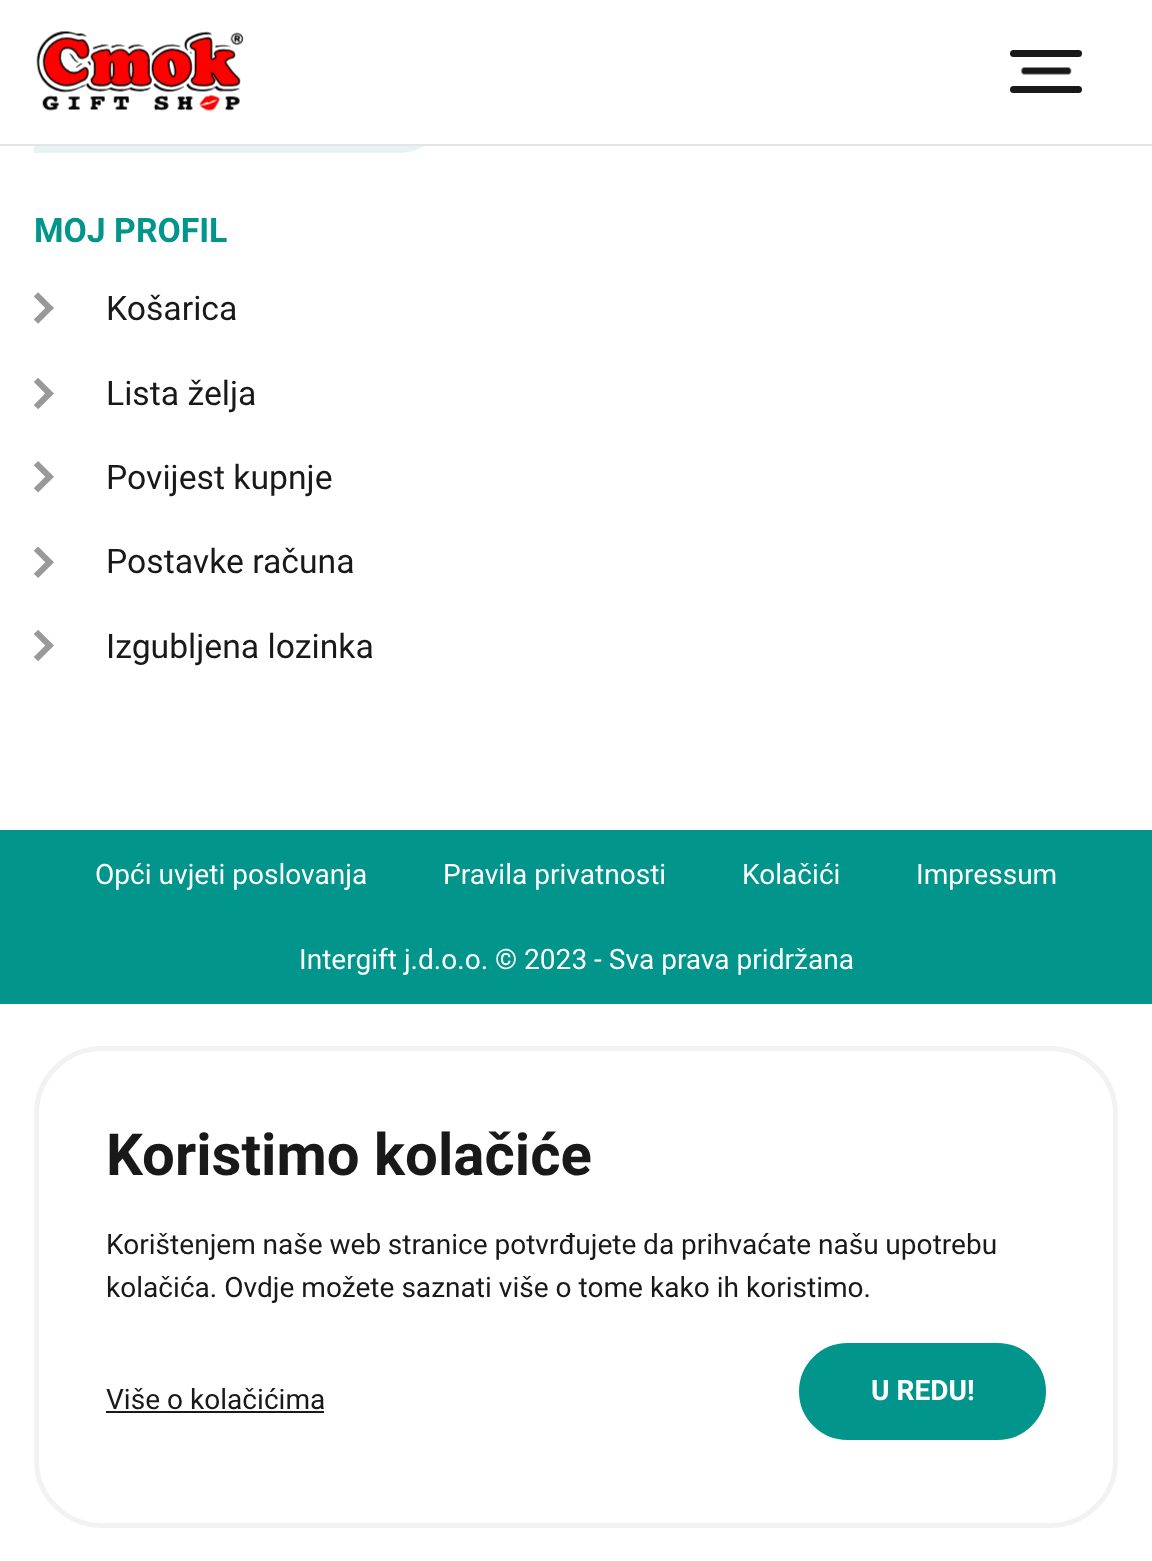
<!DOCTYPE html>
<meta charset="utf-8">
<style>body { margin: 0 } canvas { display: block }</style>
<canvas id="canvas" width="1152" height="1561"></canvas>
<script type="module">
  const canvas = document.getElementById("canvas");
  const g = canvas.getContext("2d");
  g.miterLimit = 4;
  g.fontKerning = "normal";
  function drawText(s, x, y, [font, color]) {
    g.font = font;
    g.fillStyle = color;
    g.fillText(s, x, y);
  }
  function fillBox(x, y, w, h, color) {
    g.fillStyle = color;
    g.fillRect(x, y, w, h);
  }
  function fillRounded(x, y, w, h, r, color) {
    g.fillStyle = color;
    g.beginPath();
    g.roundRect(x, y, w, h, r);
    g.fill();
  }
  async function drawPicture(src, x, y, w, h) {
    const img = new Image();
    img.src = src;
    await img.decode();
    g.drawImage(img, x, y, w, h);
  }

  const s1 = ["bold 33.75px Roboto", "#01958B"];
  const s2 = ["33.75px Roboto", "#191919"];
  const s3 = ["28.1px Roboto", "#FFFFFF"];
  const s4 = ["bold 58.1px Roboto", "#191919"];
  const s5 = ["28.1px Roboto", "#191919"];
  const s6 = ["bold 28.1px Roboto", "#FFFFFF"];

  fillBox(0, 0, 1152, 1561, "#FFFFFF");
  g.fillStyle = "#E5F4F3";
  g.beginPath();
  g.roundRect(34, 54, 414, 99, [0, 49.5, 49.5, 0]);
  g.fill();
  fillBox(34, 54, 414, 90, "#FFFFFF");
  await drawPicture("pic1.png", 36, 31, 208, 80);
  fillBox(0, 144, 1152, 2, "#E5E5E5");
  await drawPicture("pic2.png", 1021, 67, 51, 8);
  fillRounded(1010, 50, 72, 7, 3.5, "#191919");
  fillRounded(1010, 86, 72, 7, 3.5, "#191919");
  drawText("MOJ PROFIL", 34, 242, s1);
  await drawPicture("pic3.png", 34, 292, 20, 32);
  drawText("Košarica", 106, 320, s2);
  await drawPicture("pic4.png", 34, 378, 20, 31);
  drawText("Lista želja", 106, 405, s2);
  await drawPicture("pic5.png", 34, 461, 20, 32);
  drawText("Povijest kupnje", 106, 489, s2);
  await drawPicture("pic6.png", 34, 547, 20, 31);
  drawText("Postavke računa", 106, 573, s2);
  await drawPicture("pic4.png", 34, 630, 20, 31);
  drawText("Izgubljena lozinka", 106, 658, s2);
  fillBox(0, 830, 1152, 174, "#01958B");
  drawText("Opći uvjeti poslovanja", 95, 884, s3);
  drawText("Pravila privatnosti", 443, 884, s3);
  drawText("Kolačići", 742, 884, s3);
  drawText("Impressum", 916, 884, s3);
  drawText("Intergift j.d.o.o. © 2023 - Sva prava pridržana", 299, 969, s3);
  g.beginPath();
  g.roundRect(36.5, 1048.5, 1079, 477, 65.5);
  g.strokeStyle = "#F2F2F2";
  g.lineWidth = 5;
  g.stroke();
  drawText("Koristimo kolačiće", 106, 1175, s4);
  g.wordSpacing = "-0.25px";
  drawText("Korištenjem naše web stranice potvrđujete da prihvaćate našu upotrebu", 106, 1254, s5);
  g.wordSpacing = "0px";
  drawText("kolačića. Ovdje možete saznati više o tome kako ih koristimo.", 106, 1297, s5);
  drawText("Više o kolačićima", 106, 1409, s5);
  fillBox(106, 1411, 218, 2, "#191919");
  g.fillStyle = "#01958B";
  g.beginPath();
  g.roundRect(801.5, 1345.5, 242, 92, 46);
  g.fill();
  g.strokeStyle = "#01958B";
  g.stroke();
  drawText("U REDU!", 871, 1400, s6);
</script>
